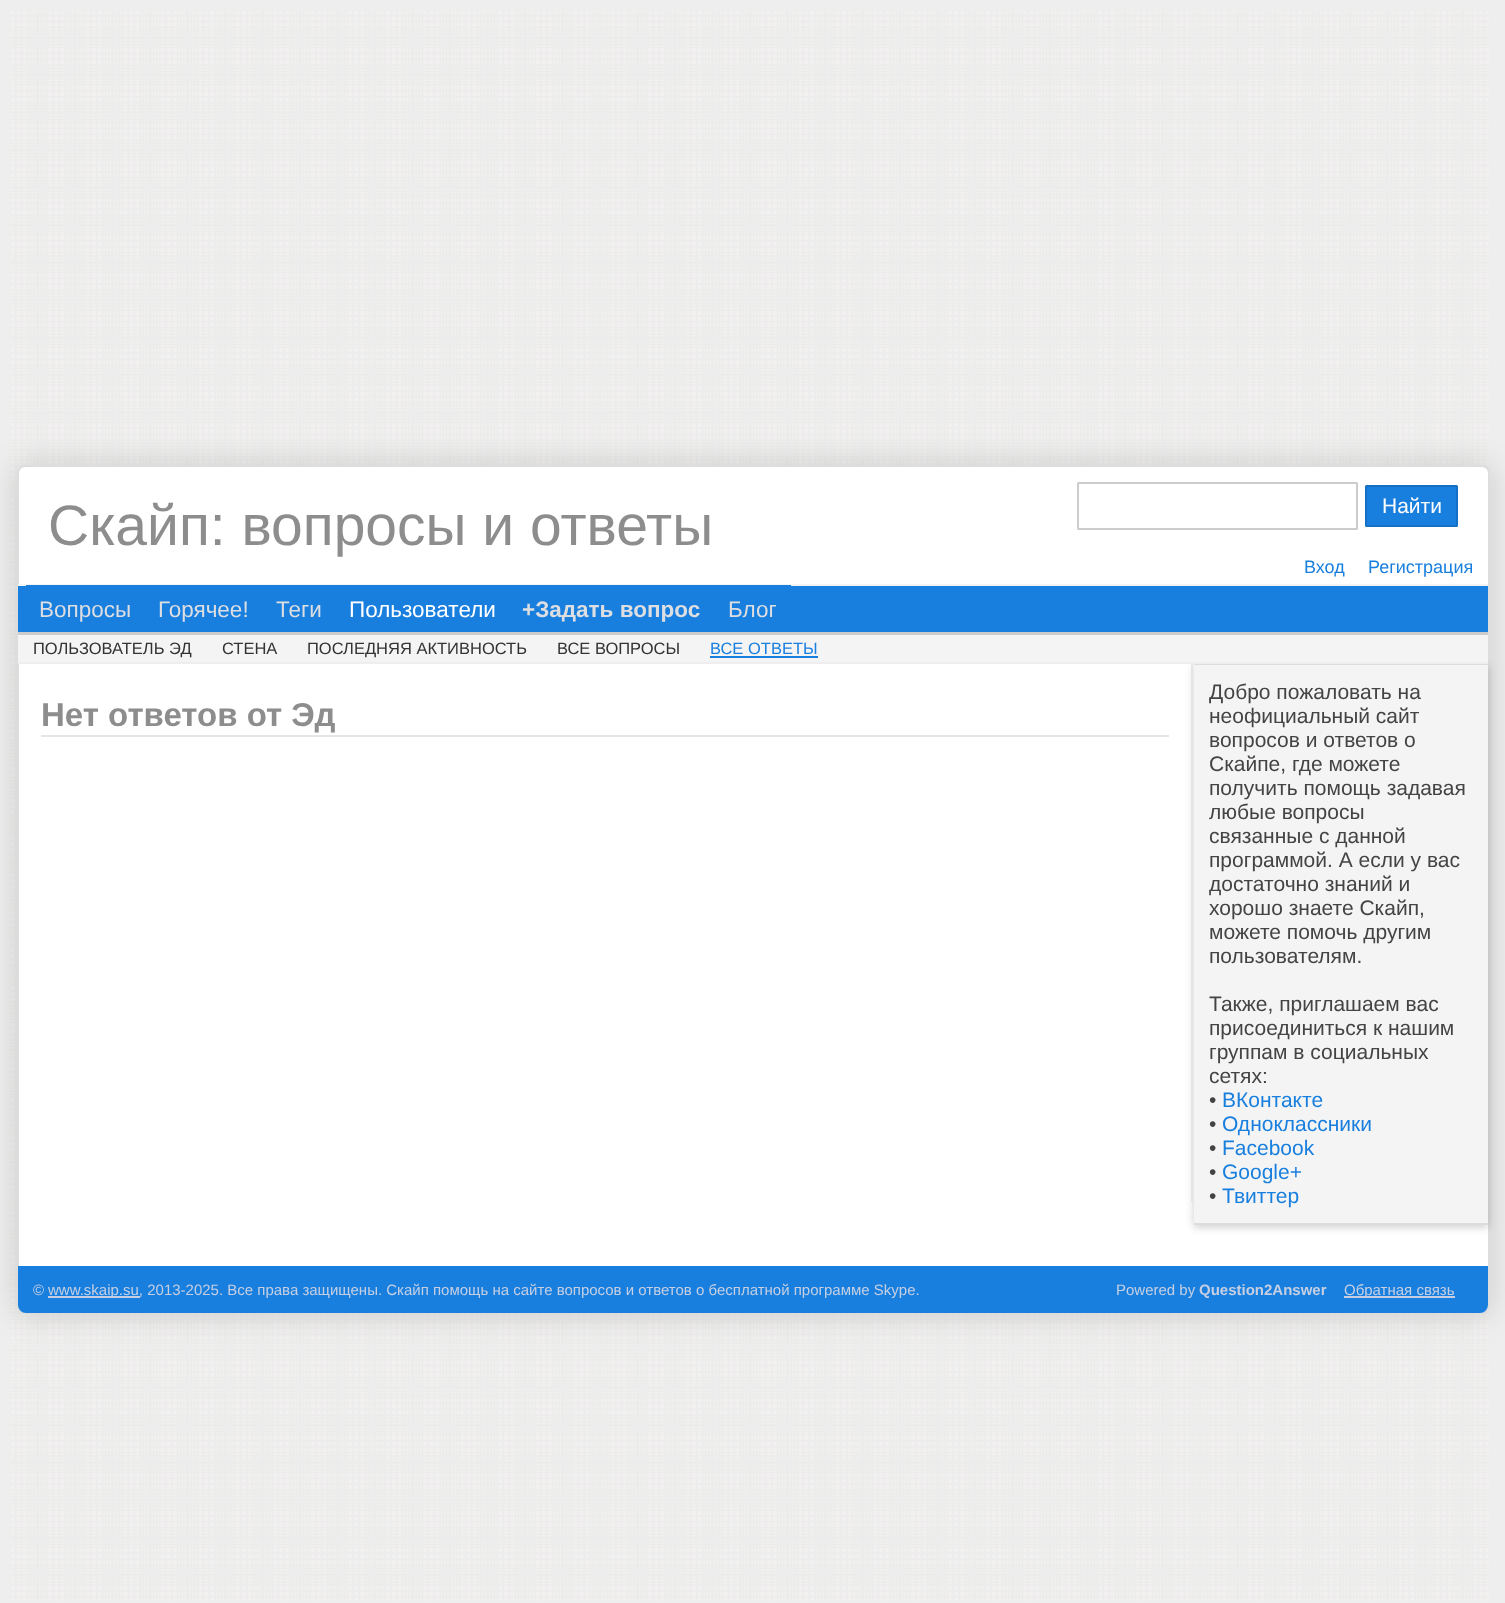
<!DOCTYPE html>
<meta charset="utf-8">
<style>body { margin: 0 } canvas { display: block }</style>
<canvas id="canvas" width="1505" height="1603"></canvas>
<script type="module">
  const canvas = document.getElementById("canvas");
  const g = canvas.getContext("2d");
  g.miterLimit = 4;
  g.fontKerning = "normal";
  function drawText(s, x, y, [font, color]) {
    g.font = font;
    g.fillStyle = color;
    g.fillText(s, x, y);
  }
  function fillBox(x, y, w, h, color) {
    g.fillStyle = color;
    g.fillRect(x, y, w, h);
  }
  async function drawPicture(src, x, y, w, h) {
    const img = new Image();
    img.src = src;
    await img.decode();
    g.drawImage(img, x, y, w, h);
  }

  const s1 = ["57px Liberation Sans", "#8D8D8D"];
  const s2 = ["21px Liberation Sans", "#FFFFFF"];
  const s3 = ["18px Liberation Sans", "#187FDF"];
  const s4 = ["22.5px Liberation Sans", "#DDDEE2"];
  const s5 = ["22.5px Liberation Sans", "#FFFFFF"];
  const s6 = ["bold 22.5px Liberation Sans", "#DDDEE2"];
  const s7 = ["16.5px Liberation Sans", "#333333"];
  const s8 = ["16.5px Liberation Sans", "#187FDF"];
  const s9 = ["bold 33px Liberation Sans", "#8D8D8D"];
  const s10 = ["21px Liberation Sans", "#444444"];
  const s11 = ["21px Liberation Sans", "#187FDF"];
  const s12 = ["15px Liberation Sans", "#C6CFE2"];
  const s13 = ["bold 15px Liberation Sans", "#C6CFE2"];

  fillBox(0, 0, 1505, 1603, "#EEEEEE");
  await drawPicture("pic1.png", 11, 11, 1478, 1590);
  g.fillStyle = "rgba(0, 0, 0, 0.15)";
  g.filter = "blur(15px)";
  g.beginPath();
  g.roundRect(17, 465, 1473, 849, 8);
  g.fill();
  g.filter = "none";
  g.fillStyle = "#FFFFFF";
  g.beginPath();
  g.roundRect(18, 466, 1471, 847, 7);
  g.fill();
  g.strokeStyle = "#DDDDDD";
  g.lineWidth = 2;
  g.stroke();
  drawText("Скайп: вопросы и ответы", 48, 545, s1);
  g.beginPath();
  g.roundRect(1078, 483, 279, 46, 0.5);
  g.strokeStyle = "#CCCCCC";
  g.stroke();
  g.fillStyle = "#187FDF";
  g.beginPath();
  g.roundRect(1366, 486, 91, 40, 0.5);
  g.fill();
  g.strokeStyle = "#1570C6";
  g.stroke();
  drawText("Найти", 1382, 513, s2);
  drawText("Вход", 1304, 573, s3);
  drawText("Регистрация", 1368, 573, s3);
  fillBox(18, 586, 1470, 46, "#187FDF");
  fillBox(18, 584, 1470, 2, "#F4F4F4");
  fillBox(18, 632, 1470, 3, "#CCCCCC");
  fillBox(26, 585, 765, 1, "#187FDF");
  drawText("Вопросы", 39, 617, s4);
  drawText("Горячее!", 158, 617, s4);
  drawText("Теги", 276, 617, s4);
  drawText("Пользователи", 349, 617, s5);
  drawText("+Задать вопрос", 522, 617, s6);
  drawText("Блог", 728, 617, s4);
  g.fillStyle = "rgba(0, 0, 0, 0.2)";
  g.filter = "blur(4px)";
  g.beginPath();
  g.rect(1194, 666, 294, 561);
  g.fill();
  g.filter = "none";
  fillBox(18, 635, 1470, 27, "#F4F4F4");
  fillBox(1191, 663, 2, 539, "#E5E5E5");
  fillBox(18, 662, 1470, 2, "#EEEEEE");
  drawText("ПОЛЬЗОВАТЕЛЬ ЭД", 33, 654, s7);
  drawText("СТЕНА", 222, 654, s7);
  drawText("ПОСЛЕДНЯЯ АКТИВНОСТЬ", 307, 654, s7);
  drawText("ВСЕ ВОПРОСЫ", 557, 654, s7);
  drawText("ВСЕ ОТВЕТЫ", 710, 654, s8);
  fillBox(710, 656, 108, 2, "#187FDF");
  fillBox(41, 735, 1128, 2, "#E5E5E5");
  drawText("Нет ответов от Эд", 41, 726, s9);
  fillBox(1194, 665, 294, 558, "#F4F4F4");
  fillBox(1194, 664, 294, 1, "#DDDDDD");
  fillBox(1194, 1223, 294, 2, "#DDDDDD");
  drawText("Добро пожаловать на", 1209, 699, s10);
  drawText("неофициальный сайт", 1209, 723, s10);
  drawText("вопросов и ответов о", 1209, 747, s10);
  drawText("Скайпе, где можете", 1209, 771, s10);
  drawText("получить помощь задавая", 1209, 795, s10);
  drawText("любые вопросы", 1209, 819, s10);
  drawText("связанные с данной", 1209, 843, s10);
  drawText("программой. А если у вас", 1209, 867, s10);
  drawText("достаточно знаний и", 1209, 891, s10);
  drawText("хорошо знаете Скайп,", 1209, 915, s10);
  drawText("можете помочь другим", 1209, 939, s10);
  drawText("пользователям.", 1209, 963, s10);
  drawText("Также, приглашаем вас", 1209, 1011, s10);
  drawText("присоединиться к нашим", 1209, 1035, s10);
  drawText("группам в социальных", 1209, 1059, s10);
  drawText("сетях:", 1209, 1083, s10);
  drawText("•", 1209, 1107, s10);
  drawText("ВКонтакте", 1222, 1107, s11);
  drawText("•", 1209, 1131, s10);
  drawText("Одноклассники", 1222, 1131, s11);
  drawText("•", 1209, 1155, s10);
  drawText("Facebook", 1222, 1155, s11);
  drawText("•", 1209, 1179, s10);
  drawText("Google+", 1222, 1179, s11);
  drawText("•", 1209, 1203, s10);
  drawText("Твиттер", 1222, 1203, s11);
  g.beginPath();
  g.roundRect(18, 1266, 1470, 47, [0, 0, 8, 8]);
  g.fill();
  drawText("©", 33, 1295, s12);
  fillBox(48, 1296, 92, 2, "#C6CFE2");
  drawText("www.skaip.su, 2013-2025. Все права защищены. Скайп помощь на сайте вопросов и ответов о бесплатной программе Skype.", 48, 1295, s12);
  drawText("Powered by", 1116, 1295, s12);
  drawText("Question2Answer", 1199, 1295, s13);
  fillBox(1344, 1296, 111, 2, "#C6CFE2");
  drawText("Обратная связь", 1344, 1295, s12);
</script>
